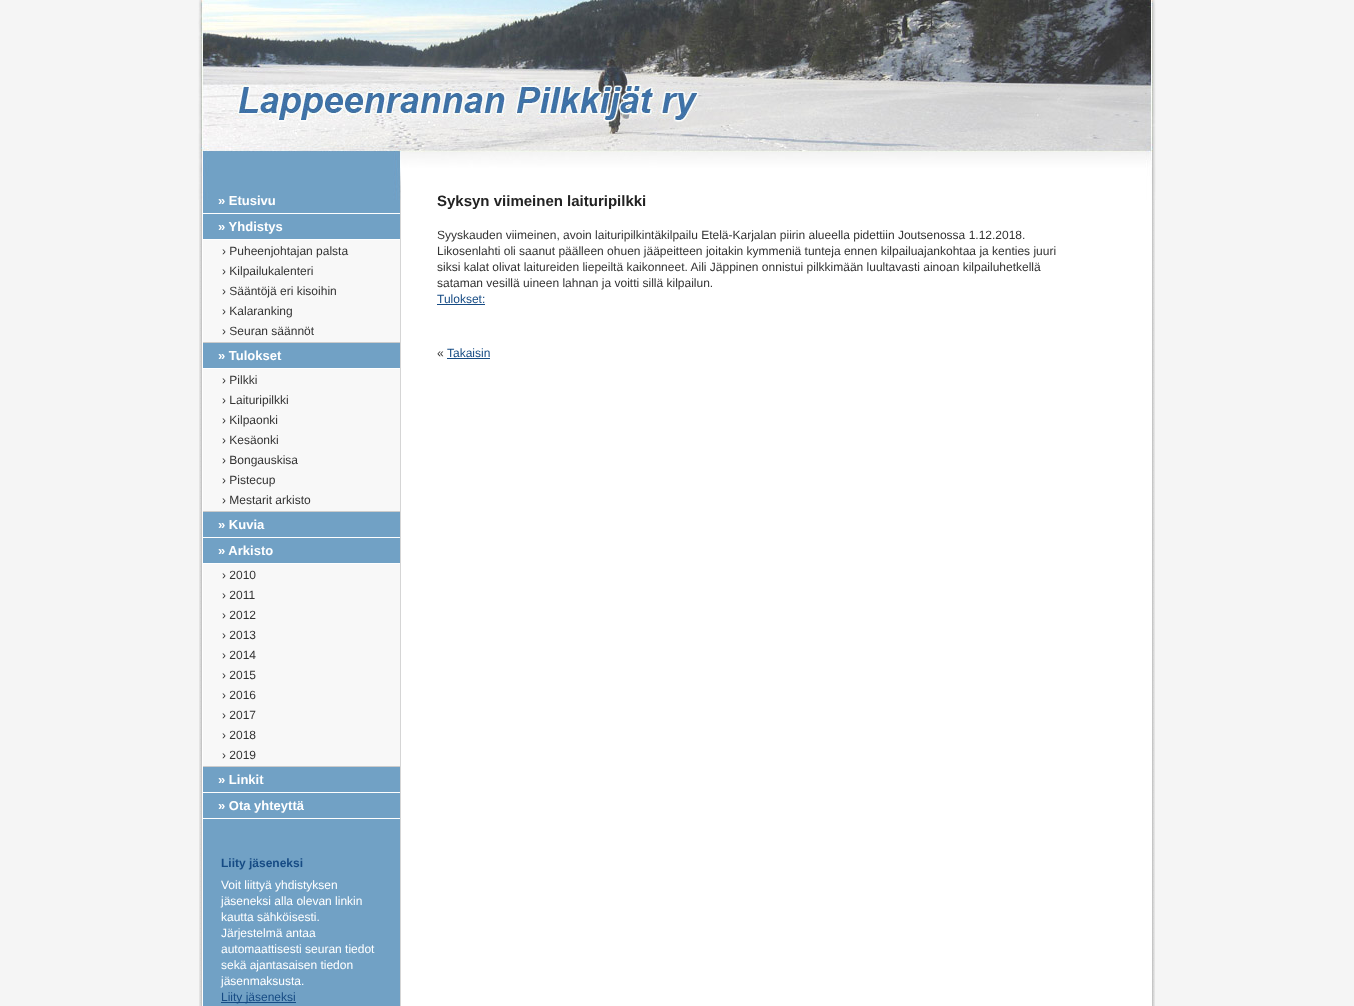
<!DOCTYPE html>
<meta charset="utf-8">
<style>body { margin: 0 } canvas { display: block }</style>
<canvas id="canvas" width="1354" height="1006"></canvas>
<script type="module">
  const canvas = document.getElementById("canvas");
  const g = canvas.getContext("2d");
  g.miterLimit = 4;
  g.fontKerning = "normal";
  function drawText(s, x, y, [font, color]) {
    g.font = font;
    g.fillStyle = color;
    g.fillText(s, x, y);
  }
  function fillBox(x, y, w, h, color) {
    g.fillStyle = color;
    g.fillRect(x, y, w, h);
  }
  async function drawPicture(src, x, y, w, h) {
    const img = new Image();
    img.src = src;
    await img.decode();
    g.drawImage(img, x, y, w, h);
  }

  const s1 = ["bold 13px Liberation Sans", "#FFFFFF"];
  const s2 = ["12px Liberation Sans", "#333333"];
  const s3 = ["bold 12px Liberation Sans", "#164B84"];
  const s4 = ["12px Liberation Sans", "#FFFFFF"];
  const s5 = ["12px Liberation Sans", "#164B84"];
  const s6 = ["bold 15px Liberation Sans", "#222222"];

  fillBox(0, 0, 1354, 1006, "#F5F5F5");
  await drawPicture("pic1.png", 199, 200, 956, 806);
  await drawPicture("pic2.png", 198, 0, 958, 200);
  fillBox(203, 213, 197, 1, "#FFFFFF");
  drawText("» Etusivu", 218, 205, s1);
  fillBox(203, 239, 197, 1, "#FFFFFF");
  drawText("» Yhdistys", 218, 231, s1);
  fillBox(203, 240, 197, 102, "#F8F8F8");
  fillBox(203, 342, 197, 1, "#CCCCCC");
  drawText("› Puheenjohtajan palsta", 222, 255, s2);
  drawText("› Kilpailukalenteri", 222, 275, s2);
  drawText("› Sääntöjä eri kisoihin", 222, 295, s2);
  drawText("› Kalaranking", 222, 315, s2);
  drawText("› Seuran säännöt", 222, 335, s2);
  fillBox(203, 368, 197, 1, "#FFFFFF");
  drawText("» Tulokset", 218, 360, s1);
  fillBox(203, 369, 197, 142, "#F8F8F8");
  fillBox(203, 511, 197, 1, "#CCCCCC");
  drawText("› Pilkki", 222, 384, s2);
  drawText("› Laituripilkki", 222, 404, s2);
  drawText("› Kilpaonki", 222, 424, s2);
  drawText("› Kesäonki", 222, 444, s2);
  drawText("› Bongauskisa", 222, 464, s2);
  drawText("› Pistecup", 222, 484, s2);
  drawText("› Mestarit arkisto", 222, 504, s2);
  fillBox(203, 537, 197, 1, "#FFFFFF");
  drawText("» Kuvia", 218, 529, s1);
  fillBox(203, 563, 197, 1, "#FFFFFF");
  drawText("» Arkisto", 218, 555, s1);
  fillBox(203, 564, 197, 202, "#F8F8F8");
  fillBox(203, 766, 197, 1, "#CCCCCC");
  drawText("› 2010", 222, 579, s2);
  drawText("› 2011", 222, 599, s2);
  drawText("› 2012", 222, 619, s2);
  drawText("› 2013", 222, 639, s2);
  drawText("› 2014", 222, 659, s2);
  drawText("› 2015", 222, 679, s2);
  drawText("› 2016", 222, 699, s2);
  drawText("› 2017", 222, 719, s2);
  drawText("› 2018", 222, 739, s2);
  drawText("› 2019", 222, 759, s2);
  fillBox(203, 792, 197, 1, "#FFFFFF");
  drawText("» Linkit", 218, 784, s1);
  fillBox(203, 818, 197, 1, "#FFFFFF");
  drawText("» Ota yhteyttä", 218, 810, s1);
  drawText("Liity jäseneksi", 221, 867, s3);
  drawText("Voit liittyä yhdistyksen", 221, 889, s4);
  drawText("jäseneksi alla olevan linkin", 221, 905, s4);
  drawText("kautta sähköisesti.", 221, 921, s4);
  drawText("Järjestelmä antaa", 221, 937, s4);
  drawText("automaattisesti seuran tiedot", 221, 953, s4);
  drawText("sekä ajantasaisen tiedon", 221, 969, s4);
  drawText("jäsenmaksusta.", 221, 985, s4);
  fillBox(221, 1002, 75, 1, "#164B84");
  drawText("Liity jäseneksi", 221, 1001, s5);
  drawText("Syksyn viimeinen laituripilkki", 437, 206, s6);
  drawText("Syyskauden viimeinen, avoin laituripilkintäkilpailu Etelä-Karjalan piirin alueella pidettiin Joutsenossa 1.12.2018.", 437, 239, s2);
  drawText("Likosenlahti oli saanut päälleen ohuen jääpeitteen joitakin kymmeniä tunteja ennen kilpailuajankohtaa ja kenties juuri", 437, 255, s2);
  drawText("siksi kalat olivat laitureiden liepeiltä kaikonneet. Aili Jäppinen onnistui pilkkimään luultavasti ainoan kilpailuhetkellä", 437, 271, s2);
  drawText("sataman vesillä uineen lahnan ja voitti sillä kilpailun.", 437, 287, s2);
  drawText("Tulokset:", 437, 303, s5);
  fillBox(437, 304, 48, 1, "#164B84");
  drawText("«", 437, 357, s2);
  drawText("Takaisin", 447, 357, s5);
  fillBox(447, 358, 43, 1, "#164B84");
</script>
